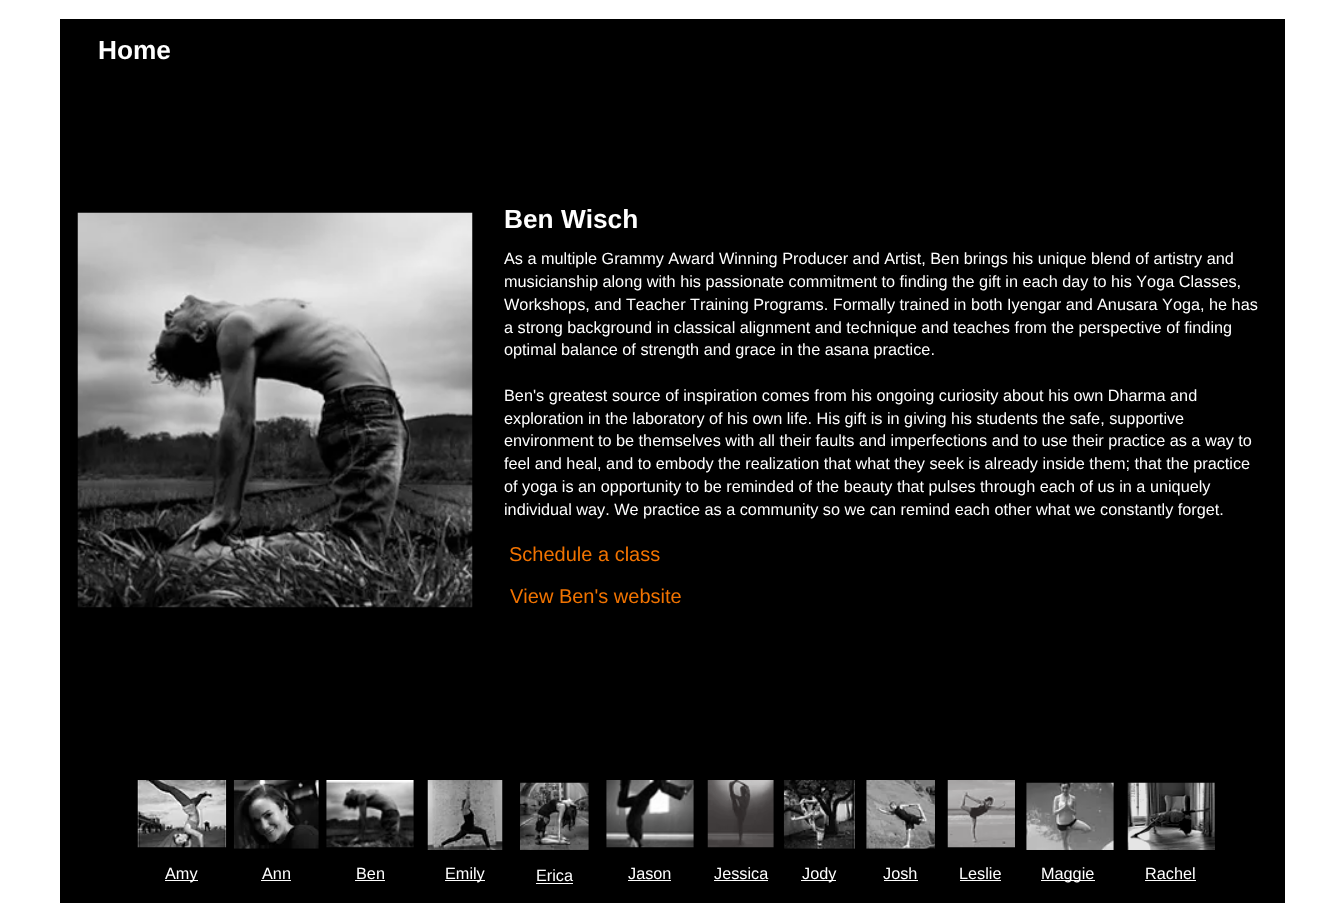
<!DOCTYPE html>
<meta charset="utf-8">
<style>body { margin: 0 } canvas { display: block }</style>
<canvas id="canvas" width="1344" height="903"></canvas>
<script type="module">
  const canvas = document.getElementById("canvas");
  const g = canvas.getContext("2d");
  g.miterLimit = 4;
  g.fontKerning = "none";
  function drawText(s, x, y, [font, color]) {
    g.font = font;
    g.fillStyle = color;
    g.fillText(s, x, y);
  }
  function fillBox(x, y, w, h, color) {
    g.fillStyle = color;
    g.fillRect(x, y, w, h);
  }
  async function drawPicture(src, x, y, w, h) {
    const img = new Image();
    img.src = src;
    await img.decode();
    g.drawImage(img, x, y, w, h);
  }

  const s1 = ["bold 26.25px Liberation Sans", "#FFFFFF"];
  const s2 = ["16.25px Liberation Sans", "#FFFFFF"];
  const s3 = ["20px Liberation Sans", "#F17300"];

  fillBox(0, 0, 1344, 903, "#FFFFFF");
  fillBox(60, 19, 1225, 884, "#000000");
  drawText("Home", 98, 59, s1);
  await drawPicture("pic1.png", 77, 212, 396, 396);
  drawText("Ben Wisch", 504, 228, s1);
  drawText("As a multiple Grammy Award Winning Producer and Artist, Ben brings his unique blend of artistry and", 504, 264, s2);
  drawText("musicianship along with his passionate commitment to finding the gift in each day to his Yoga Classes,", 504, 287, s2);
  drawText("Workshops, and Teacher Training Programs. Formally trained in both Iyengar and", 504, 310, s2);
  drawText("Anusara Yoga, he has", 1097, 310, s2);
  drawText("a strong background in classical alignment and technique and teaches from the perspective of finding", 504, 333, s2);
  drawText("optimal balance of strength and grace in the asana practice.", 504, 355, s2);
  drawText("Ben's greatest source of inspiration comes from his ongoing curiosity about his own Dharma and", 504, 401, s2);
  drawText("exploration in the laboratory of his own life. His gift is in giving his students the safe, supportive", 504, 424, s2);
  drawText("environment to be themselves with all their faults and imperfections and to use their practice as a way to", 504, 446, s2);
  drawText("feel and heal, and to embody the realization that what they seek is already inside them; that the practice", 504, 469, s2);
  drawText("of yoga is an opportunity to be reminded of the beauty that pulses through each of us in a uniquely", 504, 492, s2);
  drawText("individual way. We practice as a community so we can remind each other what we constantly forget.", 504, 515, s2);
  drawText("Schedule a class", 509, 561, s3);
  drawText("View Ben's website", 510, 603, s3);
  await drawPicture("pic2.png", 137, 780, 90, 68);
  await drawPicture("pic3.png", 233, 780, 86, 69);
  await drawPicture("pic4.png", 326, 780, 88, 68);
  await drawPicture("pic5.png", 427, 780, 76, 70);
  await drawPicture("pic6.png", 520, 782, 69, 68);
  await drawPicture("pic7.png", 606, 780, 88, 68);
  await drawPicture("pic8.png", 707, 780, 67, 68);
  await drawPicture("pic9.png", 783, 780, 72, 69);
  await drawPicture("pic10.png", 866, 780, 69, 69);
  await drawPicture("pic11.png", 947, 780, 68, 68);
  await drawPicture("pic12.png", 1026, 782, 88, 68);
  await drawPicture("pic13.png", 1127, 782, 88, 68);
  fillBox(165, 880, 33, 1, "#FFFFFF");
  drawText("Amy", 165, 879, s2);
  drawText("Ann", 262, 879, s2);
  fillBox(261, 880, 30, 1, "#FFFFFF");
  drawText("Ben", 356, 879, s2);
  fillBox(355, 880, 30, 1, "#FFFFFF");
  fillBox(445, 880, 40, 1, "#FFFFFF");
  drawText("Emily", 445, 879, s2);
  drawText("Erica", 536, 881, s2);
  fillBox(536, 883, 37, 1, "#FFFFFF");
  drawText("Jason", 628, 879, s2);
  fillBox(628, 880, 43, 1, "#FFFFFF");
  drawText("Jessica", 714, 879, s2);
  fillBox(714, 880, 54, 1, "#FFFFFF");
  fillBox(801, 880, 35, 1, "#FFFFFF");
  drawText("Jody", 802, 879, s2);
  drawText("Josh", 883, 879, s2);
  fillBox(884, 880, 34, 1, "#FFFFFF");
  drawText("Leslie", 959, 879, s2);
  fillBox(960, 880, 41, 1, "#FFFFFF");
  fillBox(1041, 880, 54, 1, "#FFFFFF");
  drawText("Maggie", 1041, 879, s2);
  drawText("Rachel", 1145, 879, s2);
  fillBox(1145, 880, 51, 1, "#FFFFFF");
</script>
